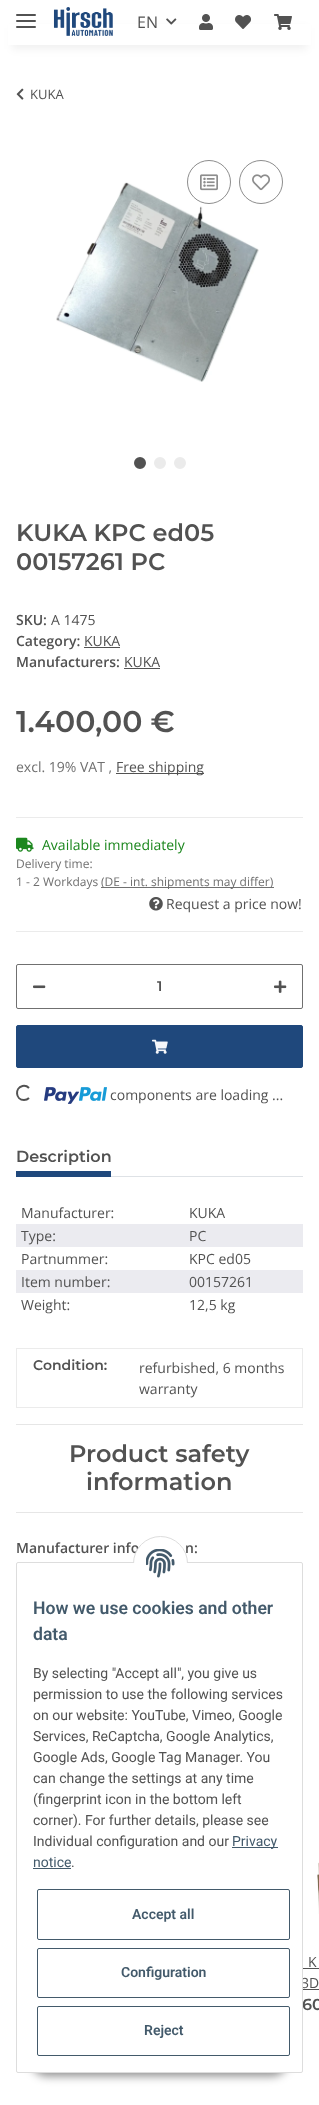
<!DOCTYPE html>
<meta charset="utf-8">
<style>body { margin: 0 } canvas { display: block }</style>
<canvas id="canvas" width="319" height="2105"></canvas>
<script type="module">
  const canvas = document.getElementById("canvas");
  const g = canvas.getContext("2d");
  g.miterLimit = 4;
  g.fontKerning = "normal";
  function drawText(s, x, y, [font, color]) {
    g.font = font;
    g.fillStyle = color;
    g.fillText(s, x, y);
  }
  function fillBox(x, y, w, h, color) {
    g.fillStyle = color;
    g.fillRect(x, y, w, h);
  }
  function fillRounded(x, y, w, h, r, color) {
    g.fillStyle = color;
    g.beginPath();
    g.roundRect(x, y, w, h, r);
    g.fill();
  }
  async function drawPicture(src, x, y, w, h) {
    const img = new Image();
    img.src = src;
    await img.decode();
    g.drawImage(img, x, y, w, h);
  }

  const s1 = ["16px Open Sans", "#525252"];
  const s2 = ["13px Open Sans", "#525252"];
  const s3 = ["600 24px Montserrat", "#525252"];
  const s4 = ["600 14px Open Sans", "#525252"];
  const s5 = ["14px Open Sans", "#525252"];
  const s6 = ["600 30px Montserrat", "#525252"];
  const s7 = ["14px Open Sans", "#707070"];
  const s8 = ["14px Open Sans", "#1C871E"];
  const s9 = ["12px Open Sans", "#707070"];
  const s10 = ["600 14px Montserrat", "#525252"];
  const s11 = ["600 16px Montserrat", "#525252"];
  const s12 = ["600 17.6px Roboto", "#435A6B"];
  const s13 = ["14px Roboto", "#525252"];
  const s14 = ["14px Roboto", "#435A6B"];
  const s15 = ["600 14px Roboto", "#435A6B"];

  fillBox(0, 0, 319, 2105, "#FFFFFF");
  g.fillStyle = "rgba(0, 0, 0, 0.06)";
  g.filter = "blur(4.5px)";
  g.beginPath();
  g.rect(12, 28, 295, 21);
  g.fill();
  g.filter = "none";
  fillBox(8, 24, 303, 21, "#FFFFFF");
  fillRounded(16, 20, 20, 2, 1, "#525252");
  fillRounded(16, 14, 20, 2, 1, "#525252");
  fillRounded(16, 26, 20, 2, 1, "#525252");
  await drawPicture("pic1.png", 53, 7, 60, 29);
  drawText("EN", 137, 28, s1);
  await drawPicture("pic2.png", 166, 18, 11, 7);
  await drawPicture("pic3.png", 199, 14, 14, 16);
  await drawPicture("pic4.png", 235, 15, 16, 14);
  await drawPicture("pic5.png", 274, 14, 18, 16);
  await drawPicture("pic6.png", 16, 88, 8, 12);
  drawText("KUKA", 30, 99, s2);
  await drawPicture("pic9.png", 56, 182, 203, 200);
  g.beginPath();
  g.arc(209, 182, 21.5, 0, Math.PI * 2);
  g.strokeStyle = "#8D8D8D";
  g.stroke();
  await drawPicture("pic7.png", 200, 174, 18, 17);
  g.beginPath();
  g.arc(261, 182, 21.5, 0, Math.PI * 2);
  g.stroke();
  await drawPicture("pic8.png", 252, 174, 18, 17);
  g.beginPath();
  g.arc(140, 463, 5, 0, Math.PI * 2);
  g.fill();
  g.strokeStyle = "#525252";
  g.lineWidth = 2;
  g.stroke();
  g.fillStyle = "#EBEBEB";
  g.beginPath();
  g.arc(160, 463, 5, 0, Math.PI * 2);
  g.fill();
  g.strokeStyle = "#EBEBEB";
  g.stroke();
  g.beginPath();
  g.arc(180, 463, 5, 0, Math.PI * 2);
  g.fill();
  g.stroke();
  drawText("KUKA KPC ed05", 16, 541, s3);
  drawText("00157261 PC", 16, 570, s3);
  drawText("SKU:", 16, 625, s4);
  drawText("A 1475", 51, 625, s5);
  drawText("Category:", 16, 646, s4);
  drawText("KUKA", 84, 646, s5);
  fillBox(84, 647, 36, 1, "#525252");
  drawText("Manufacturers:", 16, 667, s4);
  drawText("KUKA", 124, 667, s5);
  fillBox(124, 668, 36, 1, "#525252");
  drawText("1.400,00 €", 16, 732, s6);
  drawText("excl. 19% VAT ,", 16, 772, s7);
  fillBox(116, 773, 88, 1, "#525252");
  drawText("Free shipping", 116, 772, s5);
  fillBox(16, 817, 287, 1, "#EBEBEB");
  fillBox(16, 931, 287, 1, "#EBEBEB");
  await drawPicture("pic10.png", 16, 837, 18, 15);
  drawText("Available immediately", 42, 850, s8);
  drawText("Delivery time:", 16, 868, s9);
  drawText("1 - 2 Workdays", 16, 886, s9);
  fillBox(101, 887, 173, 1, "#707070");
  drawText("(DE - int. shipments may differ)", 101, 886, s9);
  await drawPicture("pic11.png", 149, 897, 14, 14);
  drawText("Request a price now!", 166, 909, s5);
  g.beginPath();
  g.roundRect(16.5, 964.5, 286, 44, 1.5);
  g.strokeStyle = "#707070";
  g.lineWidth = 1;
  g.stroke();
  await drawPicture("pic12.png", 33, 985, 13, 4);
  drawText("1", 157, 991, s10);
  await drawPicture("pic13.png", 274, 980, 13, 13);
  g.fillStyle = "#1F487C";
  g.beginPath();
  g.roundRect(16.5, 1025.5, 286, 42, 1.5);
  g.fill();
  g.strokeStyle = "#1F487C";
  g.stroke();
  await drawPicture("pic14.png", 152, 1039, 16, 15);
  g.beginPath();
  g.moveTo(29, 1098);
  g.bezierCurveTo(27.5, 1099.5, 26, 1100, 24, 1100);
  g.bezierCurveTo(15.5, 1100, 14.5, 1088, 22.5, 1086);
  g.bezierCurveTo(25, 1085.5, 27.5, 1086.5, 29, 1088);
  g.strokeStyle = "#525252";
  g.lineWidth = 2;
  g.stroke();
  await drawPicture("pic15.png", 44, 1087, 63, 17);
  drawText("components are loading ...", 110, 1100, s5);
  fillBox(111, 1176, 192, 1, "#DEE2E6");
  drawText("Description", 16, 1162, s11);
  fillBox(16, 1171, 95, 6, "#1F487C");
  drawText("Manufacturer:", 21, 1218, s5);
  drawText("KUKA", 189, 1218, s5);
  fillBox(16, 1224, 287, 23, "#EBEBF0");
  drawText("Type:", 21, 1241, s5);
  drawText("PC", 189, 1241, s5);
  drawText("Partnummer:", 21, 1264, s5);
  drawText("KPC ed05", 189, 1264, s5);
  fillBox(16, 1270, 287, 23, "#EBEBF0");
  drawText("Item number:", 21, 1287, s5);
  drawText("00157261", 189, 1287, s5);
  drawText("Weight:", 21, 1310, s5);
  drawText("12,5 kg", 189, 1310, s5);
  fillBox(16, 1348, 287, 1, "#EBEBEB");
  fillBox(302, 1348, 1, 60, "#EBEBEB");
  fillBox(16, 1407, 287, 1, "#EBEBEB");
  fillBox(16, 1348, 1, 60, "#EBEBEB");
  drawText("Condition:", 33, 1370, s10);
  drawText("refurbished, 6 months", 139, 1373, s5);
  drawText("warranty", 139, 1394, s5);
  fillBox(16, 1424, 287, 1, "#E6E6E6");
  fillBox(16, 1512, 287, 1, "#E6E6E6");
  drawText("Product safety", 69, 1462, s3);
  drawText("information", 86, 1490, s3);
  drawText("Manufacturer info", 16, 1553, s4);
  drawText("n:", 185, 1553, s4);
  await drawPicture("pic16.png", 317, 1862, 2, 52);
  drawText("K", 308, 1967, s5);
  fillBox(303, 1968, 16, 1, "#525252");
  drawText("3D", 301, 1988, s5);
  fillBox(303, 1989, 16, 1, "#525252");
  drawText("60", 302, 2010, s11);
  g.fillStyle = "rgba(0, 0, 0, 0.45)";
  g.filter = "blur(5px)";
  g.beginPath();
  g.roundRect(31, 2044, 257, 32, 16);
  g.fill();
  g.filter = "none";
  g.fillStyle = "#FFFFFF";
  g.beginPath();
  g.roundRect(16.5, 1562.5, 286, 510, 1.5);
  g.fill();
  g.strokeStyle = "#DDDDDD";
  g.lineWidth = 1;
  g.stroke();
  g.beginPath();
  g.arc(160.5, 1563.5, 27, 0, Math.PI * 2);
  g.fill();
  g.stroke();
  fillBox(133, 1563, 55, 28, "#FFFFFF");
  await drawPicture("pic17.png", 146, 1549, 29, 29);
  drawText("How we use cookies and other", 33, 1614, s12);
  drawText("data", 33, 1640, s12);
  drawText("By selecting \"Accept all\", you give us", 33, 1678, s13);
  drawText("permission to use the following services", 33, 1699, s13);
  drawText("on our website: YouTube, Vimeo, Google", 33, 1720, s13);
  drawText("Services, ReCaptcha, Google Analytics,", 33, 1741, s13);
  drawText("Google Ads, Google Tag Manager. You", 33, 1762, s13);
  drawText("can change the settings at any time", 33, 1783, s13);
  drawText("(fingerprint icon in the bottom left", 33, 1804, s13);
  drawText("corner). For further details, please see", 33, 1825, s13);
  drawText("Individual configuration and our", 33, 1846, s13);
  fillBox(232, 1847, 46, 1, "#435A6B");
  drawText("Privacy", 232, 1846, s14);
  drawText("notice", 33, 1867, s14);
  fillBox(33, 1868, 38, 1, "#435A6B");
  drawText(".", 71, 1867, s13);
  g.beginPath();
  g.roundRect(37.5, 1889.5, 252, 50, 1.5);
  g.strokeStyle = "#435A6B";
  g.stroke();
  drawText("Accept all", 132, 1919, s15);
  g.beginPath();
  g.roundRect(37.5, 1948.5, 252, 49, 1.5);
  g.stroke();
  drawText("Configuration", 121, 1977, s15);
  g.beginPath();
  g.roundRect(37.5, 2006.5, 252, 49, 1.5);
  g.stroke();
  drawText("Reject", 144, 2035, s15);
</script>
